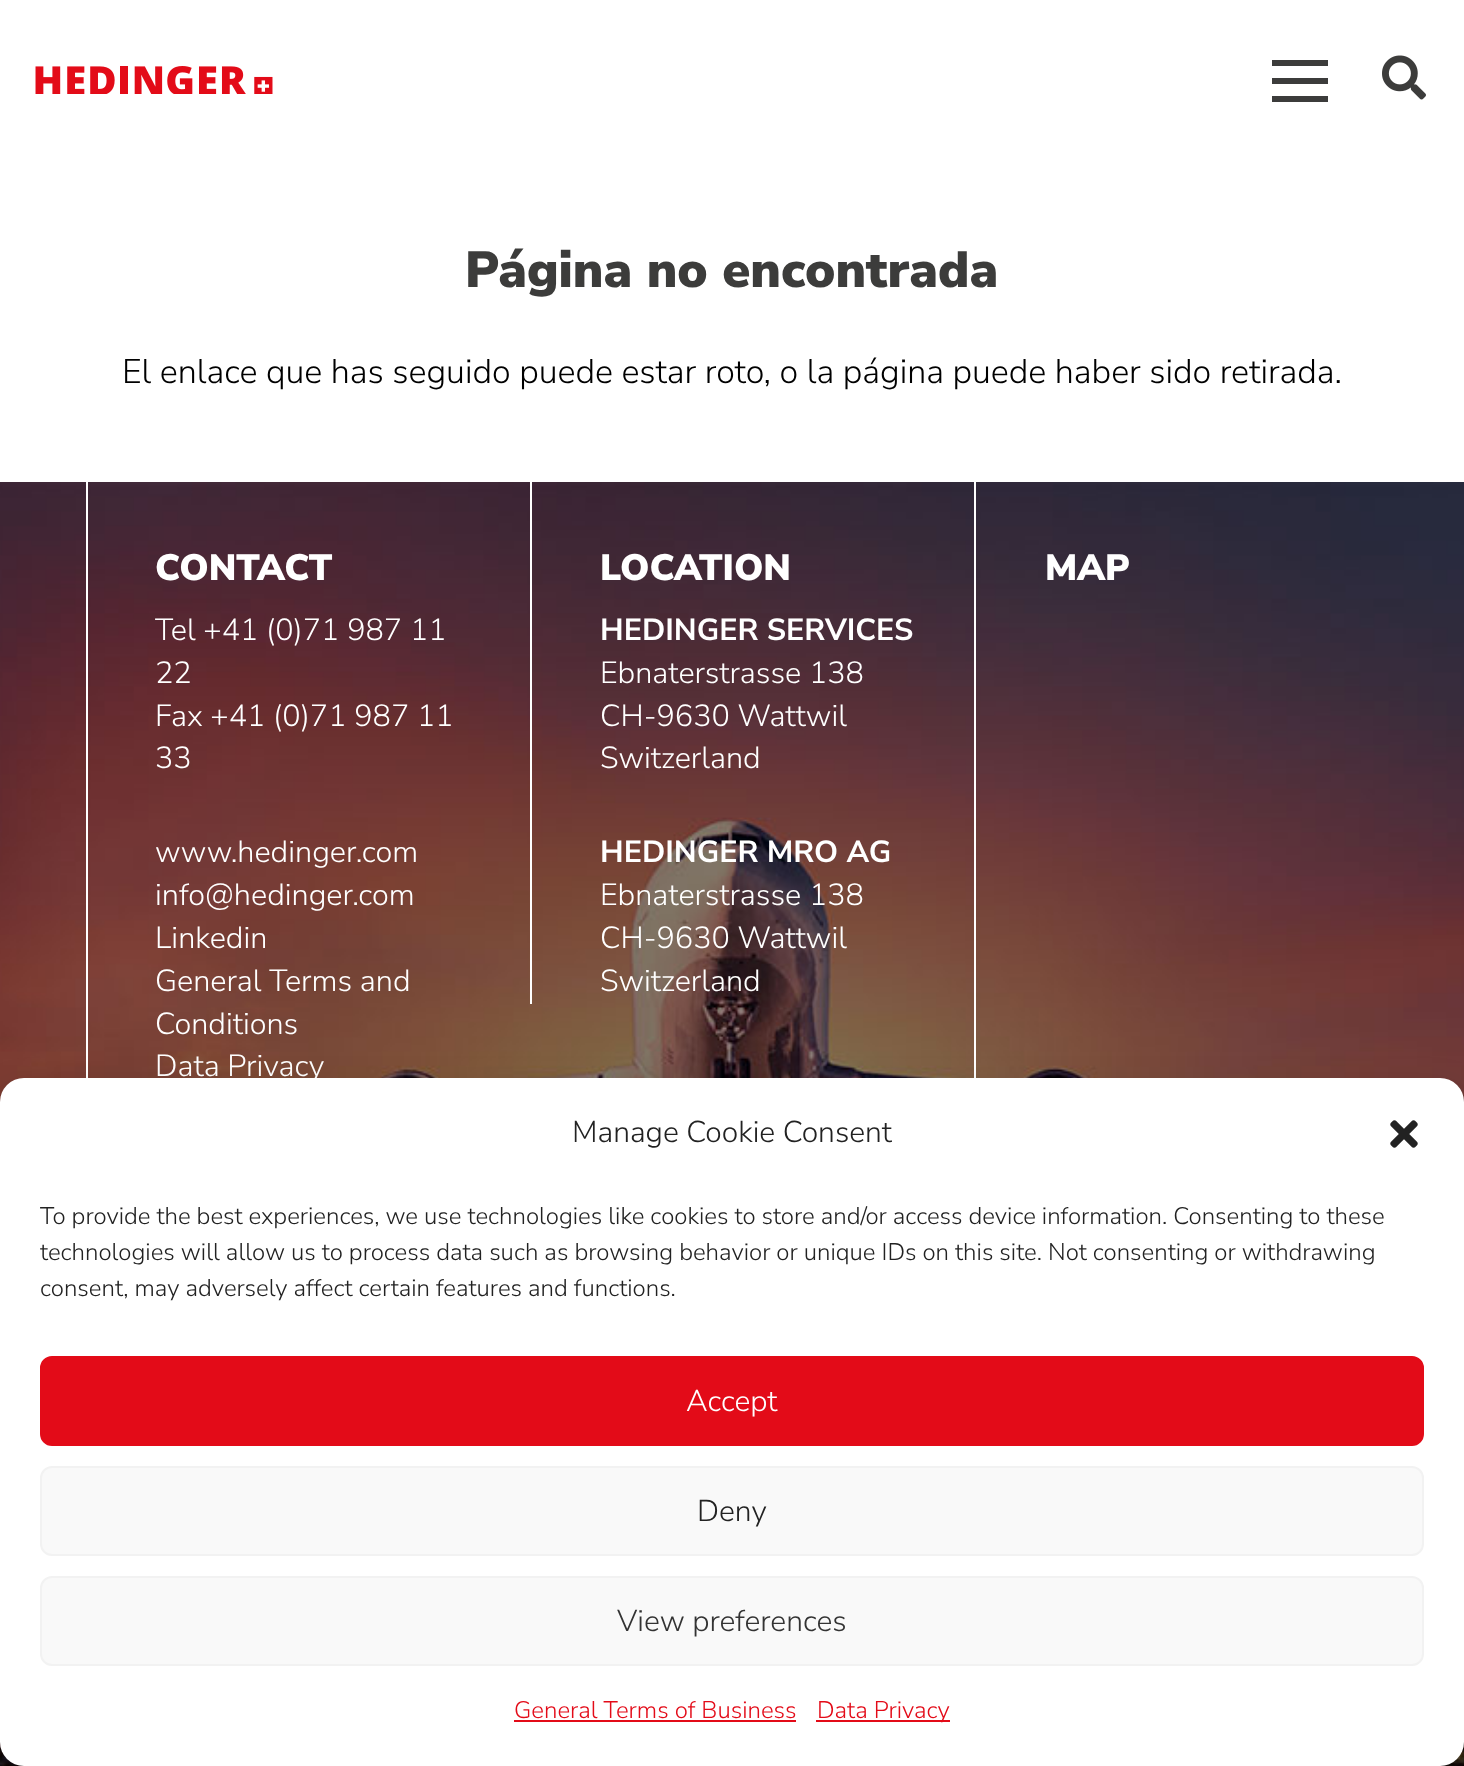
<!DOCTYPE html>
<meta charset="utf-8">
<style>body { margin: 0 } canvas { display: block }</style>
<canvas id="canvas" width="1464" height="1766"></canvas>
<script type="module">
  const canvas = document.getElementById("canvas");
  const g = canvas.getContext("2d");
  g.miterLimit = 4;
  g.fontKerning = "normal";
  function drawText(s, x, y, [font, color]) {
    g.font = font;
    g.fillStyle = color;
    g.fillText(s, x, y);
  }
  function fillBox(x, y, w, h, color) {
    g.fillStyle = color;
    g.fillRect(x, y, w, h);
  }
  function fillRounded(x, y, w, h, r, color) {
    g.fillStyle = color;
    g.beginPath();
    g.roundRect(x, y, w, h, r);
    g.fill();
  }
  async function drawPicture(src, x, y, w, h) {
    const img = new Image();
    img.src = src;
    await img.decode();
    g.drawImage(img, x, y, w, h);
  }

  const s1 = ["900 50.6px Nunito Sans", "#3C3C3B"];
  const s2 = ["300 34px Nunito Sans", "#000000"];
  const s3 = ["900 36.5px Nunito Sans", "#FFFFFF"];
  const s4 = ["300 30.6px Nunito Sans", "#FFFFFF"];
  const s5 = ["bold 30.6px Nunito Sans", "#FFFFFF"];
  const s6 = ["300 30px Nunito Sans", "#222222"];
  const s7 = ["300 24px Nunito Sans", "#222222"];
  const s8 = ["300 30px Nunito Sans", "#FFFFFF"];
  const s9 = ["300 30px Nunito Sans", "#333333"];
  const s10 = ["300 24px Nunito Sans", "#E30B18"];

  fillBox(0, 0, 1464, 1766, "#FFFFFF");
  await drawPicture("pic1.png", 35, 66, 238, 28);
  fillBox(1272, 78, 56, 6, "#3C3C3B");
  fillBox(1272, 60, 56, 6, "#3C3C3B");
  fillBox(1272, 96, 56, 6, "#3C3C3B");
  await drawPicture("pic2.png", 1382, 55, 44, 45);
  drawText("Página no encontrada", 465, 287, s1);
  drawText("El enlace que has seguido puede estar roto, o la página puede haber sido retirada.", 122, 383, s2);
  await drawPicture("pic3.png", 0, 482, 1464, 1284);
  fillBox(86, 482, 2, 596, "#FFFFFF");
  drawText("CONTACT", 155, 580, s3);
  drawText("Tel +41 (0)71 987 11", 155, 640, s4);
  drawText("22", 155, 683, s4);
  drawText("Fax +41 (0)71 987 11", 155, 726, s4);
  drawText("33", 155, 768, s4);
  drawText("www.hedinger.com", 155, 862, s4);
  drawText("info@hedinger.com", 155, 905, s4);
  drawText("Linkedin", 155, 948, s4);
  drawText("General Terms and", 155, 991, s4);
  drawText("Conditions", 155, 1034, s4);
  drawText("Data Privacy", 155, 1076, s4);
  fillBox(530, 482, 2, 522, "#FFFFFF");
  drawText("LOCATION", 600, 580, s3);
  drawText("HEDINGER SERVICES", 600, 640, s5);
  drawText("Ebnaterstrasse 138", 600, 683, s4);
  drawText("CH-9630 Wattwil", 600, 726, s4);
  drawText("Switzerland", 600, 768, s4);
  drawText("HEDINGER MRO AG", 600, 862, s5);
  drawText("Ebnaterstrasse 138", 600, 905, s4);
  drawText("CH-9630 Wattwil", 600, 948, s4);
  drawText("Switzerland", 600, 991, s4);
  fillBox(974, 482, 2, 596, "#FFFFFF");
  drawText("MAP", 1045, 580, s3);
  g.fillStyle = "rgba(0, 0, 0, 0.23)";
  g.filter = "blur(6px)";
  g.beginPath();
  g.roundRect(0, 1090, 1464, 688, 24);
  g.fill();
  g.filter = "none";
  g.fillStyle = "rgba(0, 0, 0, 0.19)";
  g.filter = "blur(20px)";
  g.beginPath();
  g.roundRect(0, 1098, 1464, 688, 24);
  g.fill();
  g.filter = "none";
  fillRounded(0, 1078, 1464, 688, 24, "#FFFFFF");
  drawText("Manage Cookie Consent", 572, 1142, s6);
  await drawPicture("pic4.png", 1390, 1120, 28, 28);
  drawText("To provide the best experiences, we use technologies like cookies to store and/or access device information. Consenting to these", 40, 1224, s7);
  drawText("technologies will allow us to process data such as browsing behavior or unique IDs on this site. Not consenting or withdrawing", 40, 1260, s7);
  drawText("consent, may adversely affect certain features and functions.", 40, 1296, s7);
  g.fillStyle = "#E30B18";
  g.beginPath();
  g.roundRect(41, 1357, 1382, 88, 11);
  g.fill();
  g.strokeStyle = "#E30B18";
  g.lineWidth = 2;
  g.stroke();
  drawText("Accept", 686, 1411, s8);
  g.fillStyle = "#F9F9F9";
  g.beginPath();
  g.roundRect(41, 1467, 1382, 88, 11);
  g.fill();
  g.strokeStyle = "#F2F2F2";
  g.stroke();
  drawText("Deny", 697, 1521, s6);
  g.fillStyle = "#F9F9F9";
  g.beginPath();
  g.roundRect(41, 1577, 1382, 88, 11);
  g.fill();
  g.stroke();
  drawText("View preferences", 617, 1631, s9);
  drawText("General Terms of Business", 514, 1718, s10);
  fillBox(514, 1720, 282, 2, "#E30B18");
  fillBox(816, 1720, 134, 2, "#E30B18");
  drawText("Data Privacy", 817, 1718, s10);
</script>
